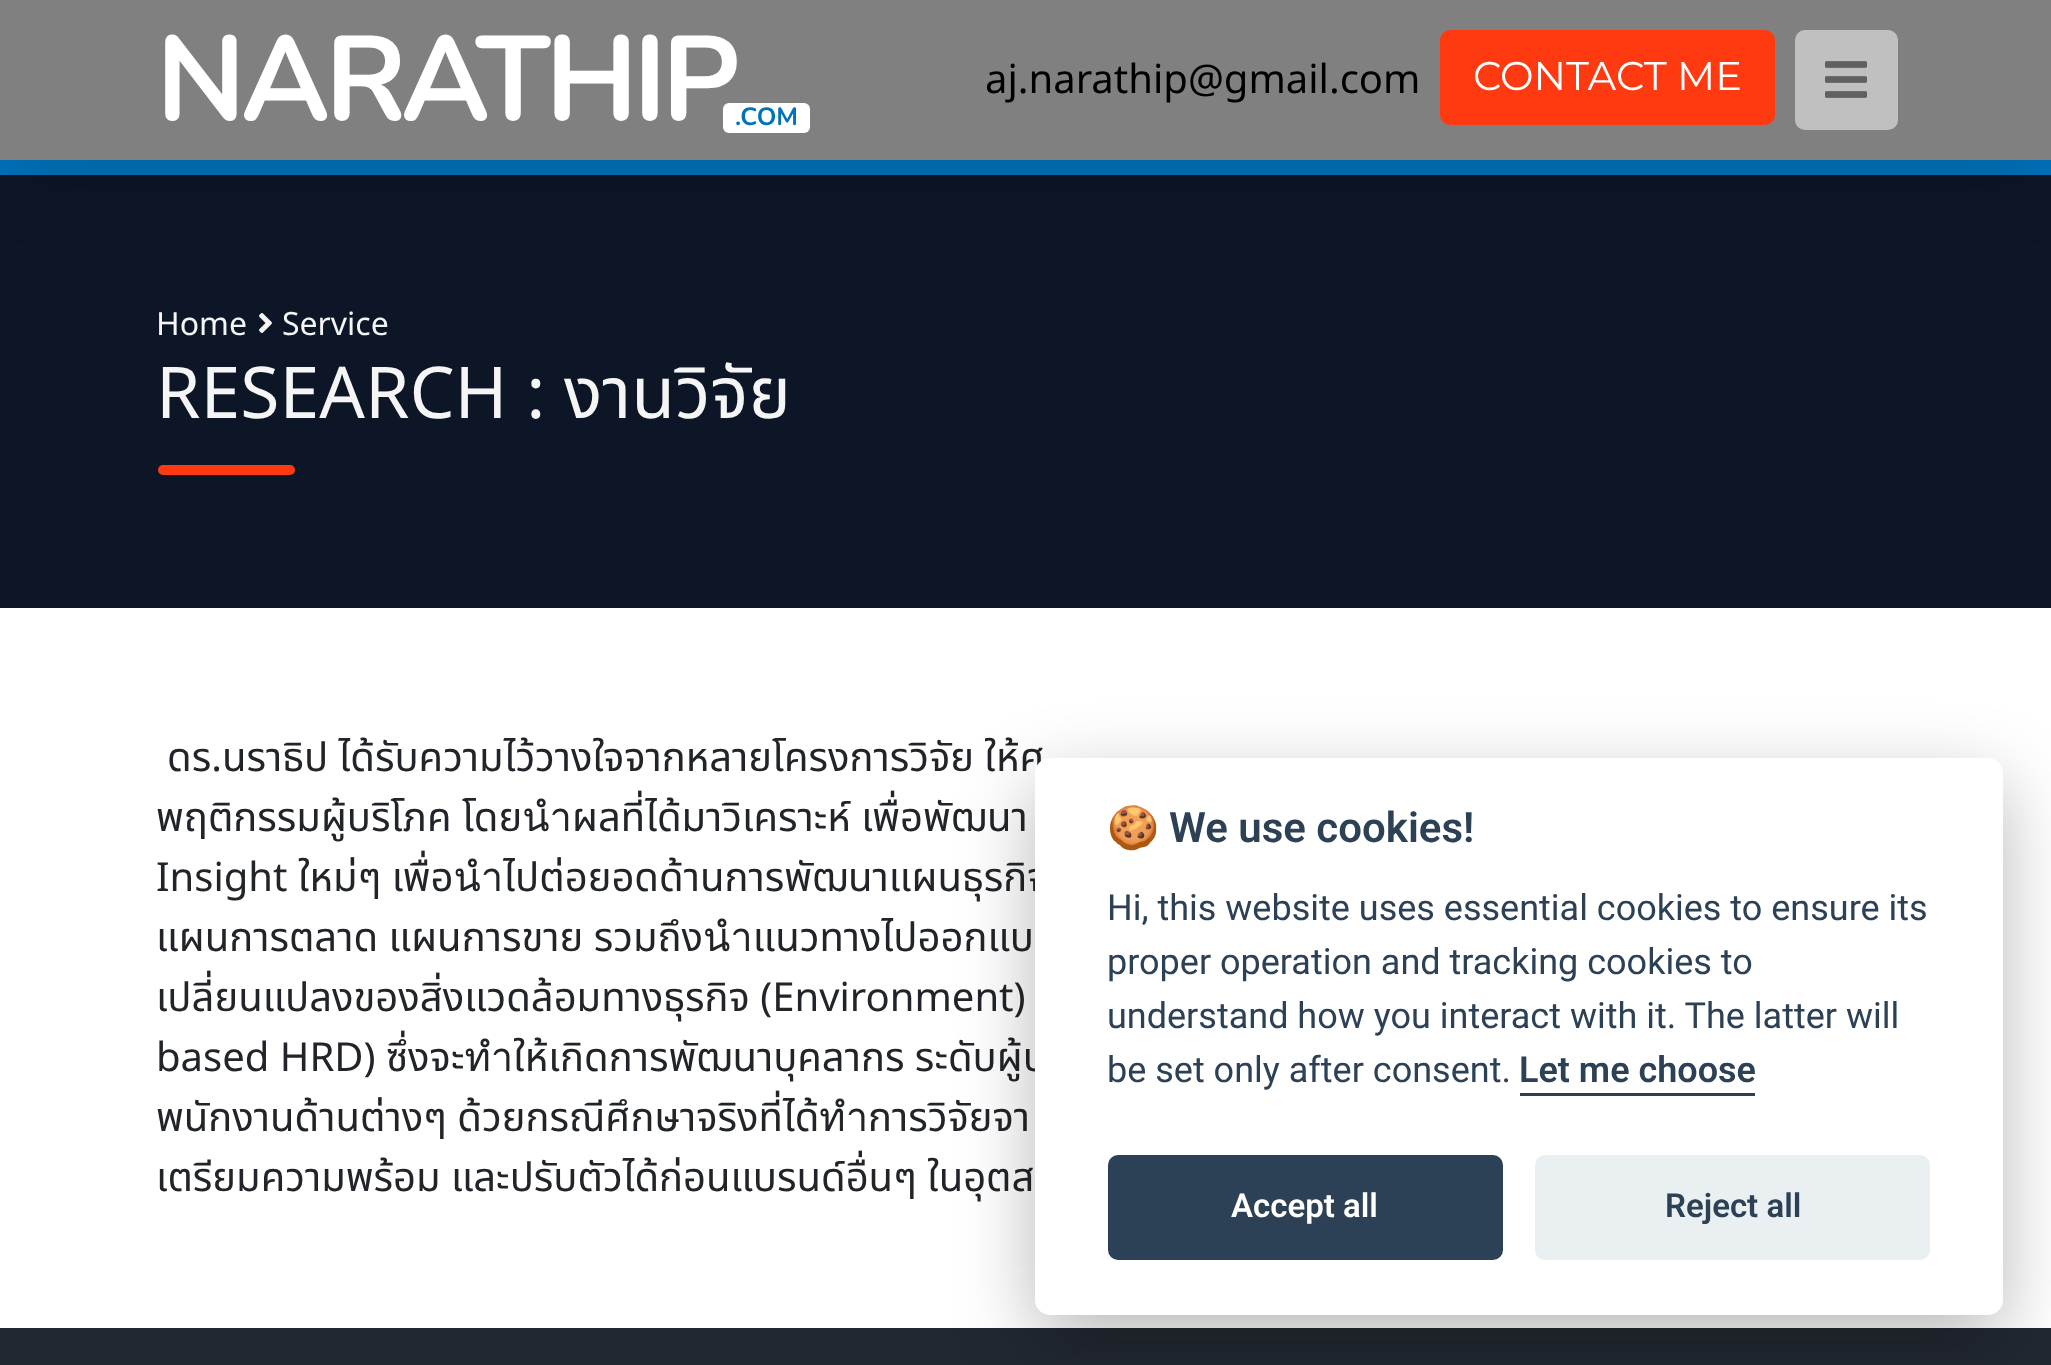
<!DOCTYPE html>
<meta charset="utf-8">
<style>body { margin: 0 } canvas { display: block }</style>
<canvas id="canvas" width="2051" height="1365"></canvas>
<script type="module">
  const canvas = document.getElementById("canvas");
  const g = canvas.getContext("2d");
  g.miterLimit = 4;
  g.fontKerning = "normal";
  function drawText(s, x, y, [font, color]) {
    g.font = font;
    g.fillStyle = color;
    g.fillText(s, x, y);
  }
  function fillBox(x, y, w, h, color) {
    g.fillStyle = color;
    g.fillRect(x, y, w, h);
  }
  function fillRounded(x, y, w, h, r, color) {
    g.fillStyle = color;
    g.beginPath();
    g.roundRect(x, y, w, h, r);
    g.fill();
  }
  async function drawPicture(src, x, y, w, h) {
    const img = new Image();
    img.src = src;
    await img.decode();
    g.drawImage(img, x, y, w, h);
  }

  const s1 = ["bold 120px Nunito", "#FFFFFF"];
  const s2 = ["bold 25px Nunito", "#0072BB"];
  const s3 = ["40px Noto Sans Thai", "#000000"];
  const s4 = ["40px Montserrat", "#FFFFFF"];
  const s5 = ["32px Noto Sans Thai", "#F5F5F5"];
  const s6 = ["71.5px Noto Sans Thai", "#F5F5F5"];
  const s7 = ["40px Noto Sans Thai", "#212529"];
  const s8 = ["bold 42px Noto Color Emoji", "#2D4156"];
  const s9 = ["600 42px Roboto", "#2D4156"];
  const s10 = ["36px Roboto", "#2D4156"];
  const s11 = ["600 36px Roboto", "#2D4156"];
  const s12 = ["600 33px Roboto", "#FFFFFF"];
  const s13 = ["600 33px Roboto", "#2D4156"];

  fillBox(0, 0, 2051, 1365, "#FFFFFF");
  fillBox(0, 175, 2051, 433, "#0D1627");
  fillBox(0, 160, 2051, 15, "#0072BB");
  g.fillStyle = "rgba(0, 0, 0, 0.15)";
  g.filter = "blur(37.5px)";
  g.beginPath();
  g.rect(10, 35, 2033, 140);
  g.fill();
  g.filter = "none";
  fillBox(0, 0, 2051, 160, "#808080");
  g.letterSpacing = "-5px";
  drawText("NARATHIP", 156, 120, s1);
  fillRounded(723, 103, 87, 30, 6, "#FFFFFF");
  g.letterSpacing = "0px";
  drawText(".COM", 735, 125, s2);
  drawText("aj.narathip@gmail.com", 985, 93, s3);
  g.fillStyle = "#FF3A11";
  g.beginPath();
  g.roundRect(1441.5, 31.5, 332, 92, 8.5);
  g.fill();
  g.strokeStyle = "#FF3A11";
  g.lineWidth = 3;
  g.stroke();
  drawText("CONTACT ME", 1473, 90, s4);
  fillRounded(1795, 30, 103, 100, 10, "#C0C0C0");
  await drawPicture("pic1.png", 1825, 61, 42, 37);
  drawText("Home", 156, 335, s5);
  await drawPicture("pic2.png", 259, 313, 13, 20);
  drawText("Service", 282, 335, s5);
  drawText("RESEARCH : งานวิจัย", 156, 418, s6);
  fillRounded(158, 465, 137, 10, 5, "#FF3A11");
  drawText("ดร.นราธิป ได้รับความไว้วางใจจากหลายโครงการวิจัย ให้ศ", 167, 771, s7);
  drawText("พฤติกรรมผู้บริโภค โดยนำผลที่ได้มาวิเคราะห์ เพื่อพัฒนา", 156, 831, s7);
  drawText("Insight ใหม่ๆ เพื่อนำไปต่อยอดด้านการพัฒนาแผนธุรกิจ", 156, 891, s7);
  drawText("แผนการตลาด แผนการขาย รวมถึงนำแนวทางไปออกแบ", 156, 951, s7);
  drawText("เปลี่ยนแปลงของสิ่งแวดล้อมทางธุรกิจ (Environment)", 156, 1011, s7);
  drawText("based HRD) ซึ่งจะทำให้เกิดการพัฒนาบุคลากร ระดับผู้บ", 156, 1071, s7);
  drawText("พนักงานด้านต่างๆ ด้วยกรณีศึกษาจริงที่ได้ทำการวิจัยจา", 156, 1131, s7);
  drawText("เตรียมความพร้อม และปรับตัวได้ก่อนแบรนด์อื่นๆ ในอุตส", 156, 1191, s7);
  fillBox(0, 1328, 2051, 37, "#222831");
  g.fillStyle = "rgba(2, 2, 3, 0.28)";
  g.filter = "blur(37.5px)";
  g.beginPath();
  g.roundRect(1035, 783, 968, 557, 15);
  g.fill();
  g.filter = "none";
  fillRounded(1035, 758, 968, 557, 15, "#FFFFFF");
  drawText("🍪", 1107, 842, s8);
  drawText("We use cookies!", 1169, 842, s9);
  drawText("Hi, this website uses essential cookies to ensure its", 1107, 920, s10);
  drawText("proper operation and tracking cookies to", 1107, 974, s10);
  drawText("understand how you interact with it. The latter will", 1107, 1028, s10);
  drawText("be set only after consent.", 1107, 1082, s10);
  drawText("Let me choose", 1519, 1082, s11);
  fillBox(1520, 1093, 235, 3, "#2D4156");
  fillRounded(1108, 1155, 395, 105, 10, "#2D4156");
  drawText("Accept all", 1231, 1217, s12);
  fillRounded(1535, 1155, 395, 105, 10, "#EAEFF2");
  drawText("Reject all", 1665, 1217, s13);
</script>
